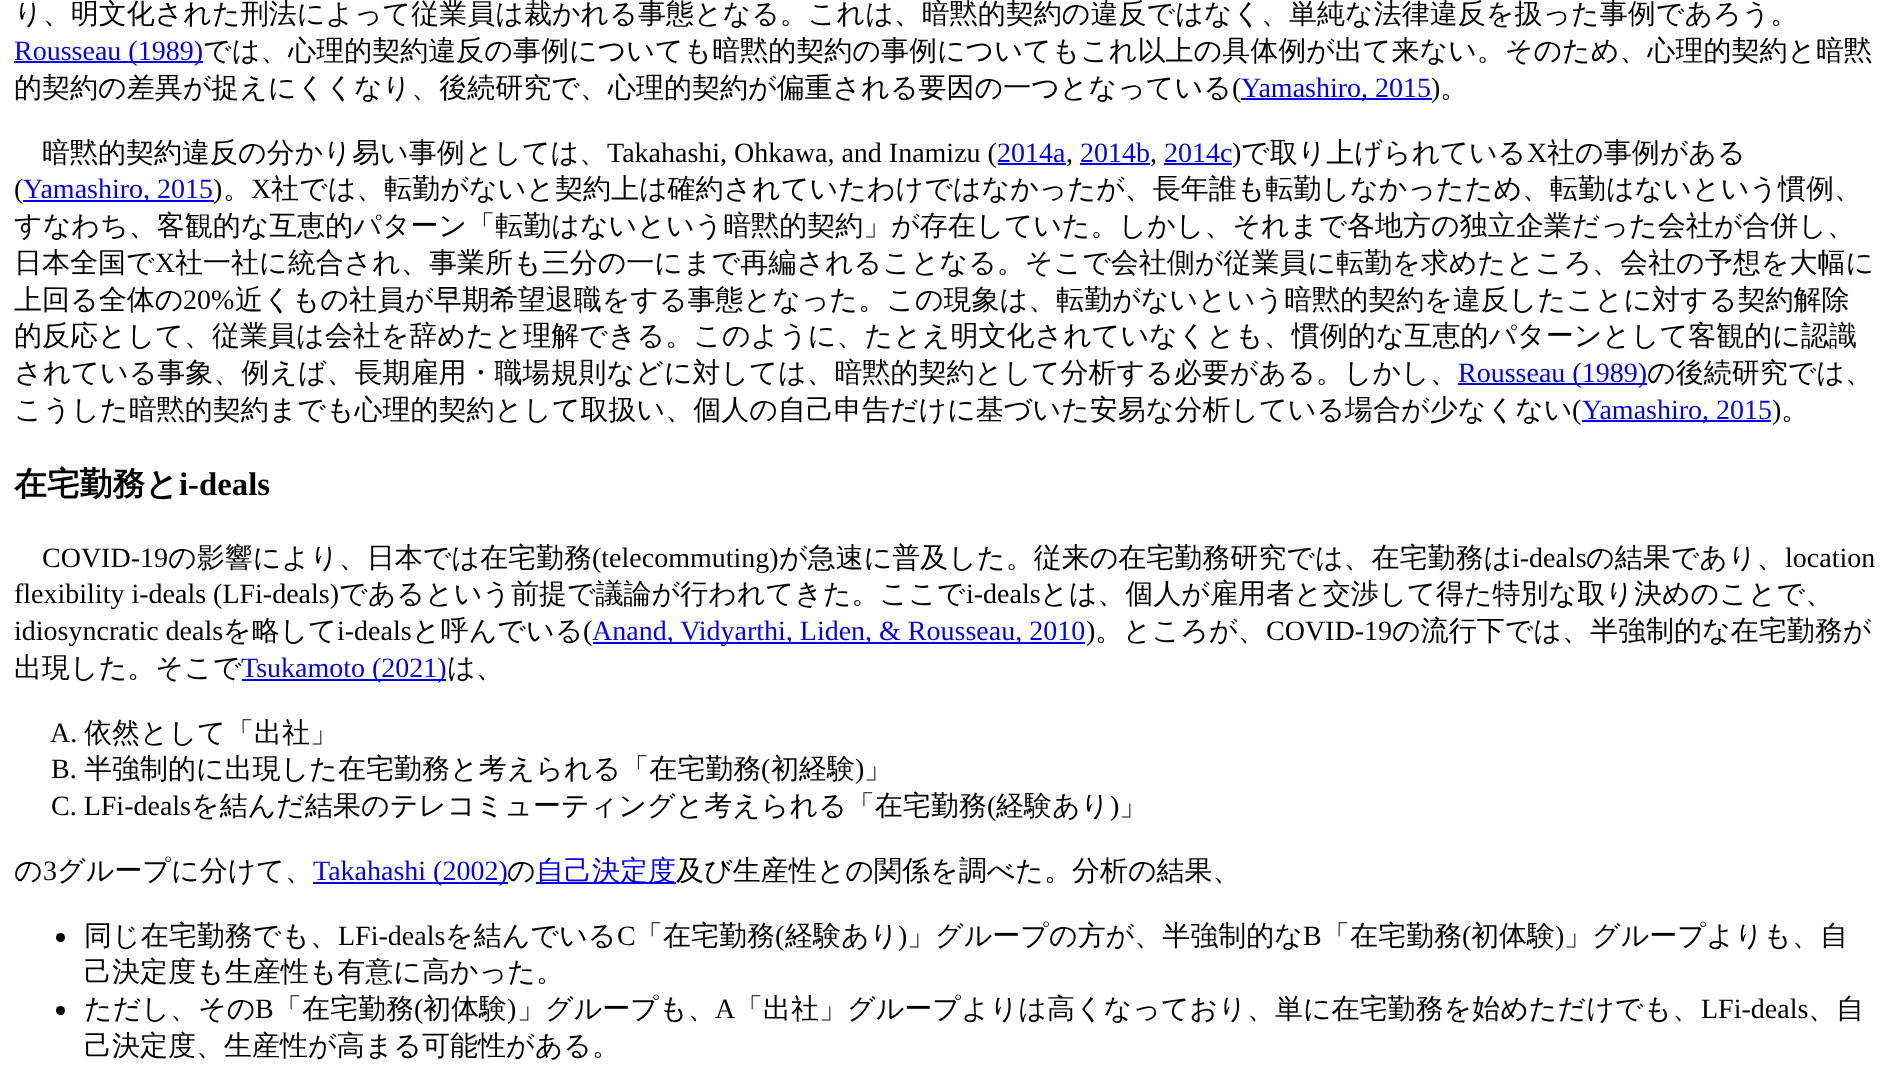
<!DOCTYPE html>
<meta charset="utf-8">
<style>body { margin: 0 } canvas { display: block }</style>
<canvas id="canvas" width="1889" height="1082"></canvas>
<script type="module">
  const canvas = document.getElementById("canvas");
  const g = canvas.getContext("2d");
  g.miterLimit = 4;
  g.fontKerning = "normal";
  function drawText(s, x, y, [font, color]) {
    g.font = font;
    g.fillStyle = color;
    g.fillText(s, x, y);
  }
  function fillBox(x, y, w, h, color) {
    g.fillStyle = color;
    g.fillRect(x, y, w, h);
  }

  const s1 = ["500 28px WenQuanYi Zen Hei", "#000000"];
  const s2 = ["28px Liberation Serif", "#0000EE"];
  const s3 = ["28px Liberation Serif", "#000000"];
  const s4 = ["bold 32.75px WenQuanYi Zen Hei", "#000000"];
  const s5 = ["bold 32.75px Liberation Serif", "#000000"];
  const s6 = ["500 28px WenQuanYi Zen Hei", "#0000EE"];

  fillBox(0, 0, 1889, 1082, "#FFFFFF");
  drawText("り、明文化された刑法によって従業員は裁かれる事態となる。これは、暗黙的契約の違反ではなく、単純な法律違反を扱った事例であろう。", 14, 23, s1);
  fillBox(14, 61, 189, 2, "#0000EE");
  drawText("Rousseau (1989)", 14, 60, s2);
  drawText("では、心理的契約違反の事例についても暗黙的契約の事例についてもこれ以上の具体例が出て来ない。そのため、心理的契約と暗黙", 203, 60, s1);
  drawText("的契約の差異が捉えにくくなり、後続研究で、心理的契約が偏重される要因の一つとなっている", 14, 97, s1);
  drawText("(", 1232, 97, s3);
  fillBox(1241, 98, 191, 2, "#0000EE");
  drawText("Yamashiro, 2015", 1241, 97, s2);
  drawText(")", 1431, 97, s3);
  drawText("。", 1440, 97, s1);
  drawText("暗黙的契約違反の分かり易い事例としては、", 42, 162, s1);
  drawText("Takahashi, Ohkawa, and Inamizu (", 607, 162, s3);
  drawText("2014a", 997, 162, s2);
  fillBox(998, 163, 68, 2, "#0000EE");
  drawText("2014b", 1080, 162, s2);
  fillBox(1080, 163, 70, 2, "#0000EE");
  drawText("2014c", 1164, 162, s2);
  fillBox(1164, 163, 68, 2, "#0000EE");
  drawText(")", 1232, 162, s3);
  drawText("で取り上げられている", 1241, 162, s1);
  drawText("X", 1527, 162, s3);
  drawText("社の事例がある", 1547, 162, s1);
  drawText(",", 1066, 162, s3);
  drawText(",", 1150, 162, s3);
  drawText("(", 14, 198, s3);
  fillBox(23, 200, 191, 2, "#0000EE");
  drawText("Yamashiro, 2015", 23, 198, s2);
  drawText(")", 213, 198, s3);
  drawText("。", 223, 198, s1);
  drawText("X", 251, 198, s3);
  drawText("社では、転勤がないと契約上は確約されていたわけではなかったが、長年誰も転勤しなかったため、転勤はないという慣例、", 271, 198, s1);
  drawText("すなわち、客観的な互恵的パターン「転勤はないという暗黙的契約」が存在していた。しかし、それまで各地方の独立企業だった会社が合併し、", 14, 235, s1);
  drawText("日本全国で", 14, 272, s1);
  drawText("X", 155, 272, s3);
  drawText("社一社に統合され、事業所も三分の一にまで再編されることなる。そこで会社側が従業員に転勤を求めたところ、会社の予想を大幅に", 175, 272, s1);
  drawText("上回る全体の", 14, 309, s1);
  drawText("20%", 183, 309, s3);
  drawText("近くもの社員が早期希望退職をする事態となった。この現象は、転勤がないという暗黙的契約を違反したことに対する契約解除", 235, 309, s1);
  drawText("的反応として、従業員は会社を辞めたと理解できる。このように、たとえ明文化されていなくとも、慣例的な互恵的パターンとして客観的に認識", 14, 345, s1);
  drawText("されている事象、例えば、長期雇用・職場規則などに対しては、暗黙的契約として分析する必要がある。しかし、", 14, 382, s1);
  fillBox(1458, 383, 189, 2, "#0000EE");
  drawText("Rousseau (1989)", 1458, 382, s2);
  drawText("の後続研究では、", 1647, 382, s1);
  drawText("こうした暗黙的契約までも心理的契約として取扱い、個人の自己申告だけに基づいた安易な分析している場合が少なくない", 14, 419, s1);
  drawText("(", 1572, 419, s3);
  fillBox(1582, 420, 189, 2, "#0000EE");
  drawText("Yamashiro, 2015", 1582, 419, s2);
  drawText(")", 1772, 419, s3);
  drawText("。", 1781, 419, s1);
  drawText("在宅勤務と", 14, 495, s4);
  drawText("i-deals", 179, 495, s5);
  drawText("COVID-19", 42, 567, s3);
  drawText("の影響により、日本では在宅勤務", 168, 567, s1);
  drawText("(telecommuting)", 592, 567, s3);
  drawText("が急速に普及した。従来の在宅勤務研究では、在宅勤務は", 779, 567, s1);
  drawText("i-deals", 1512, 567, s3);
  drawText("の結果であり、", 1586, 567, s1);
  drawText("location", 1785, 567, s3);
  drawText("flexibility i-deals (LFi-deals)", 14, 603, s3);
  drawText("であるという前提で議論が行われてきた。ここで", 339, 603, s1);
  drawText("i-deals", 966, 603, s3);
  drawText("とは、個人が雇用者と交渉して得た特別な取り決めのことで、", 1040, 603, s1);
  drawText("idiosyncratic deals", 14, 640, s3);
  drawText("を略して", 223, 640, s1);
  drawText("i-deals", 337, 640, s3);
  drawText("と呼んでいる", 412, 640, s1);
  drawText("(", 583, 640, s3);
  fillBox(593, 642, 492, 2, "#0000EE");
  drawText("Anand, Vidyarthi, Liden, & Rousseau, 2010", 592, 640, s2);
  drawText(")", 1086, 640, s3);
  drawText("。ところが、", 1095, 640, s1);
  drawText("COVID-19", 1266, 640, s3);
  drawText("の流行下では、半強制的な在宅勤務が", 1392, 640, s1);
  drawText("出現した。そこで", 14, 677, s1);
  fillBox(242, 679, 204, 2, "#0000EE");
  drawText("Tsukamoto (2021)", 241, 677, s2);
  drawText("は、", 447, 677, s1);
  drawText("A.", 50, 742, s3);
  drawText("依然として「出社」", 84, 742, s1);
  drawText("B.", 51, 778, s3);
  drawText("半強制的に出現した在宅勤務と考えられる「在宅勤務", 84, 778, s1);
  drawText("(", 761, 778, s3);
  drawText("初経験", 771, 778, s1);
  drawText(")", 855, 778, s3);
  drawText("」", 864, 778, s1);
  drawText("C. LFi-deals", 51, 815, s3);
  drawText("を結んだ結果のテレコミューティングと考えられる「在宅勤務", 191, 815, s1);
  drawText("(", 987, 815, s3);
  drawText("経験あり", 996, 815, s1);
  drawText(")", 1110, 815, s3);
  drawText("」", 1119, 815, s1);
  drawText("の", 14, 880, s1);
  drawText("3", 43, 880, s3);
  drawText("グループに分けて、", 57, 880, s1);
  fillBox(313, 882, 195, 2, "#0000EE");
  drawText("Takahashi (2002)", 313, 880, s2);
  drawText("の", 507, 880, s1);
  fillBox(536, 882, 140, 2, "#0000EE");
  drawText("自己決定度", 536, 880, s6);
  drawText("及び生産性との関係を調べた。分析の結果、", 676, 880, s1);
  g.beginPath();
  g.arc(60.5, 937.5, 4.5, 0, Math.PI * 2);
  g.fill();
  drawText("同じ在宅勤務でも、", 84, 945, s1);
  drawText("LFi-deals", 338, 945, s3);
  drawText("を結んでいる", 445, 945, s1);
  drawText("C", 617, 945, s3);
  drawText("「在宅勤務", 635, 945, s1);
  drawText("(", 775, 945, s3);
  drawText("経験あり", 785, 945, s1);
  drawText(")", 898, 945, s3);
  drawText("」グループの方が、半強制的な", 907, 945, s1);
  drawText("B", 1303, 945, s3);
  drawText("「在宅勤務", 1322, 945, s1);
  drawText("(", 1462, 945, s3);
  drawText("初体験", 1471, 945, s1);
  drawText(")", 1555, 945, s3);
  drawText("」グループよりも、自", 1564, 945, s1);
  drawText("己決定度も生産性も有意に高かった。", 84, 981, s1);
  g.beginPath();
  g.arc(60.5, 1010.5, 4.5, 0, Math.PI * 2);
  g.fill();
  drawText("ただし、その", 84, 1018, s1);
  drawText("B", 255, 1018, s3);
  drawText("「在宅勤務", 274, 1018, s1);
  drawText("(", 414, 1018, s3);
  drawText("初体験", 423, 1018, s1);
  drawText(")", 507, 1018, s3);
  drawText("」グループも、", 517, 1018, s1);
  drawText("A", 715, 1018, s3);
  drawText("「出社」グループよりは高くなっており、単に在宅勤務を始めただけでも、", 735, 1018, s1);
  drawText("LFi-deals", 1701, 1018, s3);
  drawText("、自", 1808, 1018, s1);
  drawText("己決定度、生産性が高まる可能性がある。", 84, 1055, s1);
</script>
